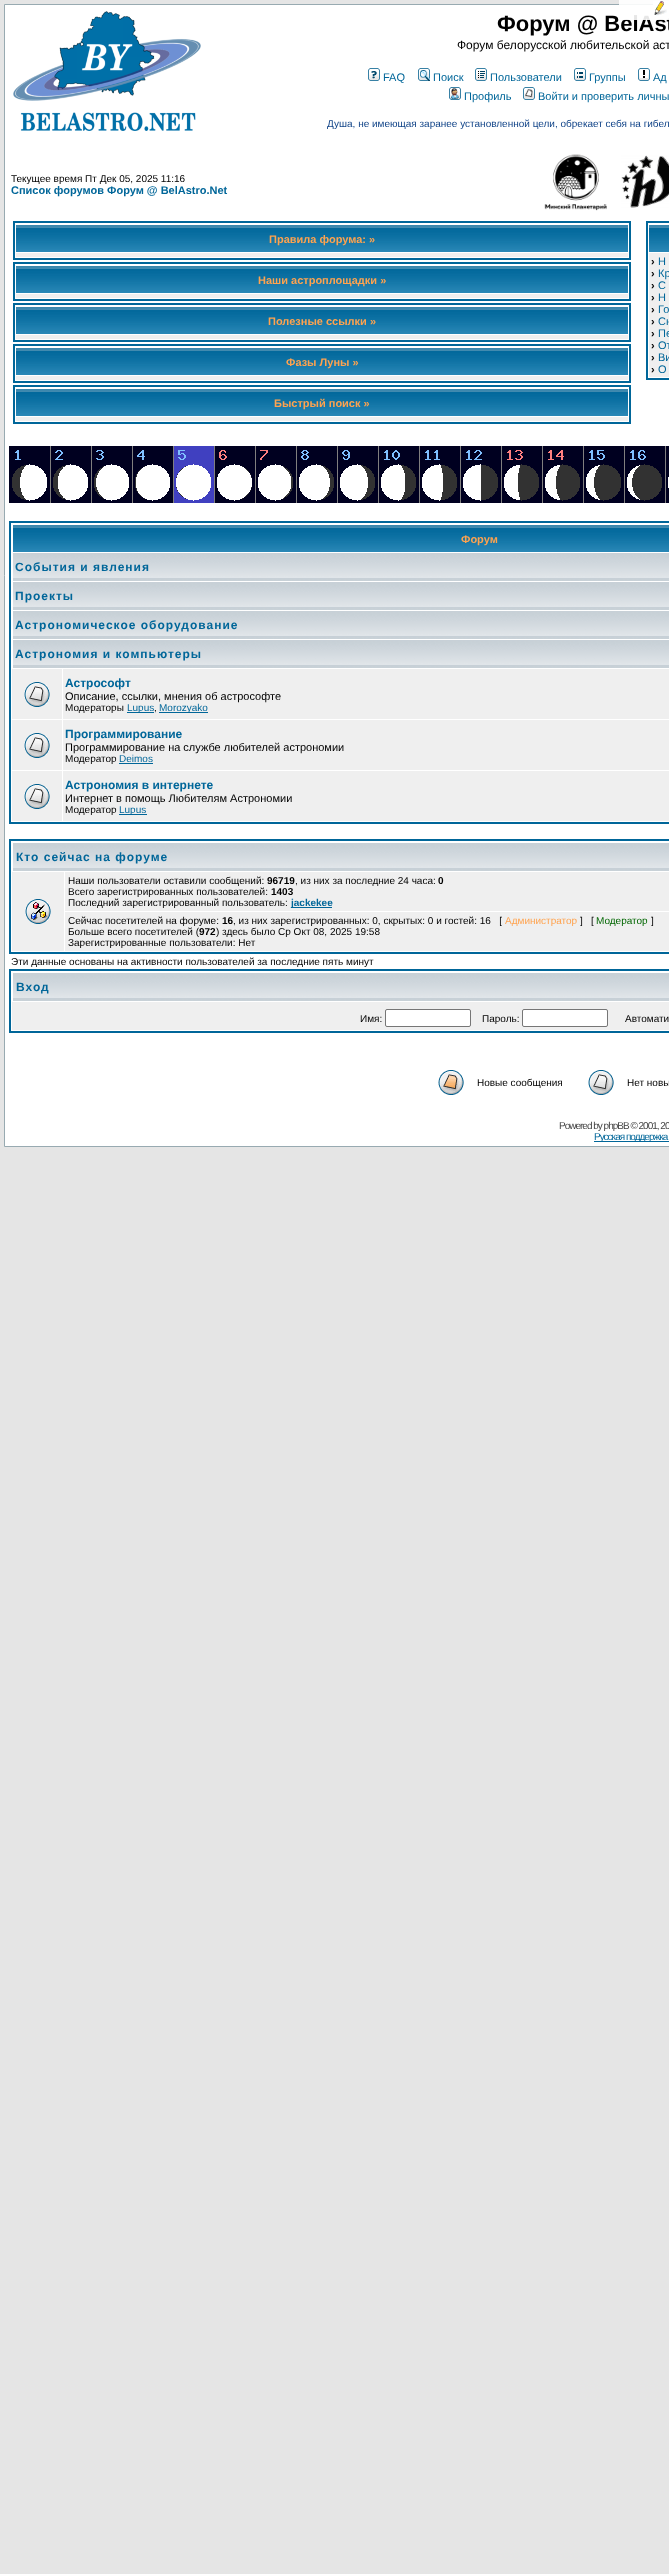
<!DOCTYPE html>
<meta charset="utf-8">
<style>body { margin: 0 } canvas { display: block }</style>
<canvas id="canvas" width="669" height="2574"></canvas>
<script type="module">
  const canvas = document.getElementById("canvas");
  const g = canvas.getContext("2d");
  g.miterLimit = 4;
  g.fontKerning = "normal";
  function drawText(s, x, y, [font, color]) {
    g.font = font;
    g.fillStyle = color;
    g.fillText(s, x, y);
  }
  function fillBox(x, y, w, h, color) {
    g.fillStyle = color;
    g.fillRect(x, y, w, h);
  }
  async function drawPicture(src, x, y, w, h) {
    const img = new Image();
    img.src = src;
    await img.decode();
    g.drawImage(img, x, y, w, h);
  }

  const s1 = ["bold 22px Liberation Sans", "#000000"];
  const s2 = ["12px Liberation Sans", "#000000"];
  const s3 = ["11px Liberation Sans", "#006699"];
  const s4 = ["10px Liberation Sans", "#114488"];
  const s5 = ["10px Liberation Sans", "#000000"];
  const s6 = ["bold 11px Liberation Sans", "#006699"];
  const s7 = ["bold 11px Liberation Sans", "#FFA34F"];
  const s8 = ["bold 11px Liberation Sans", "#000000"];
  const s9 = ["bold 12px Liberation Sans", "#006699"];
  const s10 = ["11px Liberation Sans", "#000000"];
  const s11 = ["10px Liberation Sans", "#006699"];
  const s12 = ["bold 10px Liberation Sans", "#000000"];
  const s13 = ["bold 10px Liberation Sans", "#006699"];
  const s14 = ["10px Liberation Sans", "#FFA34F"];
  const s15 = ["10px Liberation Sans", "#006600"];
  const s16 = ["10px Liberation Sans", "#444444"];

  fillBox(0, 0, 669, 2574, "#E5E5E5");
  g.fillStyle = "#FFFFFF";
  g.beginPath();
  g.rect(4.5, 4.5, 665, 1142);
  g.fill();
  g.strokeStyle = "#98AAB1";
  g.stroke();
  drawText("Форум @ BelAst", 497, 31, s1);
  fillBox(619, 0, 50, 20, "rgba(255, 255, 255, 0.9)");
  await drawPicture("pic1.png", 653, 1, 16, 15);
  await drawPicture("pic2.png", 13, 11, 188, 120);
  drawText("Форум белорусской любительской аст", 457, 49, s2);
  await drawPicture("pic3.png", 368, 68, 12, 13);
  drawText("FAQ", 383, 81, s3);
  await drawPicture("pic4.png", 418, 68, 12, 13);
  drawText("Поиск", 433, 81, s3);
  await drawPicture("pic5.png", 475, 68, 12, 13);
  drawText("Пользователи", 490, 81, s3);
  await drawPicture("pic6.png", 574, 68, 12, 13);
  drawText("Группы", 589, 81, s3);
  await drawPicture("pic7.png", 638, 68, 12, 13);
  drawText("Ад", 653, 81, s3);
  await drawPicture("pic8.png", 449, 87, 12, 13);
  drawText("Профиль", 464, 100, s3);
  await drawPicture("pic9.png", 523, 87, 12, 13);
  drawText("Войти и проверить личны", 538, 100, s3);
  drawText("Душа, не имеющая заранее установленной цели, обрекает себя на гибел", 327, 127, s4);
  drawText("Текущее время Пт Дек 05, 2025 11:16", 11, 182, s5);
  drawText("Список форумов Форум @ BelAstro.Net", 11, 194, s6);
  await drawPicture("pic10.png", 544, 154, 63, 57);
  await drawPicture("pic11.png", 621, 155, 48, 53);
  g.strokeStyle = "#006699";
  g.lineWidth = 2;
  g.strokeRect(14, 222, 616, 37);
  await drawPicture("pic12.png", 16, 225, 612, 27);
  drawText("Правила форума: »", 269, 243, s7);
  fillBox(16, 253, 612, 4, "#EFEFEF");
  g.strokeRect(14, 263, 616, 37);
  await drawPicture("pic12.png", 16, 266, 612, 27);
  drawText("Наши астроплощадки »", 258, 284, s7);
  fillBox(16, 294, 612, 4, "#EFEFEF");
  g.strokeRect(14, 304, 616, 37);
  await drawPicture("pic12.png", 16, 307, 612, 27);
  drawText("Полезные ссылки »", 268, 325, s7);
  fillBox(16, 335, 612, 4, "#EFEFEF");
  g.strokeRect(14, 345, 616, 37);
  await drawPicture("pic12.png", 16, 348, 612, 27);
  drawText("Фазы Луны »", 286, 366, s7);
  fillBox(16, 376, 612, 4, "#EFEFEF");
  g.strokeRect(14, 386, 616, 37);
  await drawPicture("pic12.png", 16, 389, 612, 27);
  drawText("Быстрый поиск »", 274, 407, s7);
  fillBox(16, 417, 612, 4, "#EFEFEF");
  g.strokeRect(647, 222, 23, 157);
  await drawPicture("pic13.png", 649, 225, 20, 27);
  fillBox(649, 253, 20, 124, "#EFEFEF");
  drawText("›", 651, 265, s8);
  drawText("Н", 658, 265, s3);
  drawText("›", 651, 277, s8);
  drawText("Кр", 658, 277, s3);
  drawText("›", 651, 289, s8);
  drawText("С", 658, 289, s3);
  drawText("›", 651, 301, s8);
  drawText("Н", 658, 301, s3);
  drawText("›", 651, 313, s8);
  drawText("Го", 658, 313, s3);
  drawText("›", 651, 325, s8);
  drawText("Сн", 658, 325, s3);
  drawText("›", 651, 337, s8);
  drawText("Пе", 658, 337, s3);
  drawText("›", 651, 349, s8);
  drawText("От", 658, 349, s3);
  drawText("›", 651, 361, s8);
  drawText("Ви", 658, 361, s3);
  drawText("›", 651, 373, s8);
  drawText("О", 658, 373, s3);
  await drawPicture("pic14.png", 9, 446, 660, 57);
  g.strokeRect(10, 522, 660, 301);
  await drawPicture("pic15.png", 13, 525, 656, 27);
  drawText("Форум", 461, 543, s7);
  await drawPicture("pic16.png", 13, 553, 656, 28);
  g.letterSpacing = "1px";
  drawText("События и явления", 15, 571, s9);
  await drawPicture("pic16.png", 13, 582, 656, 28);
  drawText("Проекты", 15, 600, s9);
  await drawPicture("pic16.png", 13, 611, 656, 28);
  drawText("Астрономическое оборудование", 15, 629, s9);
  await drawPicture("pic16.png", 13, 640, 656, 28);
  drawText("Астрономия и компьютеры", 15, 658, s9);
  fillBox(12, 669, 50, 50, "#EFEFEF");
  await drawPicture("pic17.png", 24, 682, 26, 25);
  fillBox(63, 669, 606, 50, "#EFEFEF");
  g.letterSpacing = "0px";
  drawText("Астрософт", 65, 687, s9);
  drawText("Описание, ссылки, мнения об астрософте", 65, 700, s10);
  drawText("Модераторы", 65, 711, s5);
  fillBox(127, 712, 27, 1, "#006699");
  drawText("Lupus", 127, 711, s11);
  drawText(",", 154, 711, s5);
  fillBox(159, 712, 49, 1, "#006699");
  drawText("Morozyako", 159, 711, s11);
  fillBox(12, 720, 50, 50, "#EFEFEF");
  await drawPicture("pic17.png", 24, 733, 26, 25);
  fillBox(63, 720, 606, 50, "#EFEFEF");
  drawText("Программирование", 65, 738, s9);
  drawText("Программирование на службе любителей астрономии", 65, 751, s10);
  drawText("Модератор", 65, 762, s5);
  fillBox(119, 763, 34, 1, "#006699");
  drawText("Deimos", 119, 762, s11);
  fillBox(12, 771, 50, 50, "#EFEFEF");
  await drawPicture("pic17.png", 24, 784, 26, 25);
  fillBox(63, 771, 606, 50, "#EFEFEF");
  drawText("Астрономия в интернете", 65, 789, s9);
  drawText("Интернет в помощь Любителям Астрономии", 65, 802, s10);
  drawText("Модератор", 65, 813, s5);
  fillBox(119, 814, 28, 1, "#006699");
  drawText("Lupus", 119, 813, s11);
  g.strokeRect(10, 840, 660, 113);
  await drawPicture("pic16.png", 13, 843, 656, 28);
  g.letterSpacing = "1px";
  drawText("Кто сейчас на форуме", 16, 861, s9);
  fillBox(12, 872, 52, 79, "#EFEFEF");
  await drawPicture("pic18.png", 25, 899, 26, 25);
  fillBox(65, 872, 604, 39, "#EFEFEF");
  g.letterSpacing = "0px";
  drawText("Наши пользователи оставили сообщений:", 68, 884, s5);
  drawText("96719", 267, 884, s12);
  drawText(", из них за последние 24 часа:", 295, 884, s5);
  drawText("0", 438, 884, s12);
  drawText("Всего зарегистрированных пользователей:", 68, 895, s5);
  drawText("1403", 271, 895, s12);
  drawText("Последний зарегистрированный пользователь:", 68, 906, s5);
  fillBox(291, 907, 41, 1, "#006699");
  drawText("jackekee", 291, 906, s13);
  fillBox(65, 912, 604, 39, "#EFEFEF");
  drawText("Сейчас посетителей на форуме:", 68, 924, s5);
  drawText("16", 222, 924, s12);
  drawText(", из них зарегистрированных: 0, скрытых: 0 и гостей: 16   [", 233, 924, s5);
  drawText("Администратор", 505, 924, s14);
  drawText("]   [", 580, 924, s5);
  drawText("Модератор", 596, 924, s15);
  drawText("]", 651, 924, s5);
  drawText("Больше всего посетителей (", 68, 935, s5);
  drawText("972", 199, 935, s12);
  drawText(") здесь было Ср Окт 08, 2025 19:58", 216, 935, s5);
  drawText("Зарегистрированные пользователи: Нет", 68, 946, s5);
  drawText("Эти данные основаны на активности пользователей за последние пять минут", 11, 965, s5);
  g.strokeRect(10, 970, 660, 62);
  await drawPicture("pic16.png", 13, 973, 656, 28);
  g.letterSpacing = "1px";
  drawText("Вход", 16, 991, s9);
  fillBox(12, 1002, 657, 28, "#EFEFEF");
  g.letterSpacing = "0px";
  drawText("Имя:", 360, 1022, s5);
  g.fillStyle = "#FFFFFF";
  g.beginPath();
  g.roundRect(385.5, 1009.5, 85, 17, 1.5);
  g.fill();
  g.strokeStyle = "#767676";
  g.lineWidth = 1;
  g.stroke();
  drawText("Пароль:", 482, 1022, s5);
  g.fillStyle = "#FFFFFF";
  g.beginPath();
  g.roundRect(522.5, 1009.5, 85, 17, 1.5);
  g.fill();
  g.stroke();
  drawText("Автомати", 625, 1022, s5);
  await drawPicture("pic19.png", 438, 1070, 26, 25);
  drawText("Новые сообщения", 477, 1086, s5);
  await drawPicture("pic20.png", 588, 1070, 26, 25);
  drawText("Нет новы", 627, 1086, s5);
  g.letterSpacing = "-1px";
  drawText("Powered by phpBB © 2001, 20", 559, 1129, s16);
  fillBox(594, 1141, 75, 1, "#006699");
  drawText("Русская поддержка", 594, 1140, s11);
</script>
